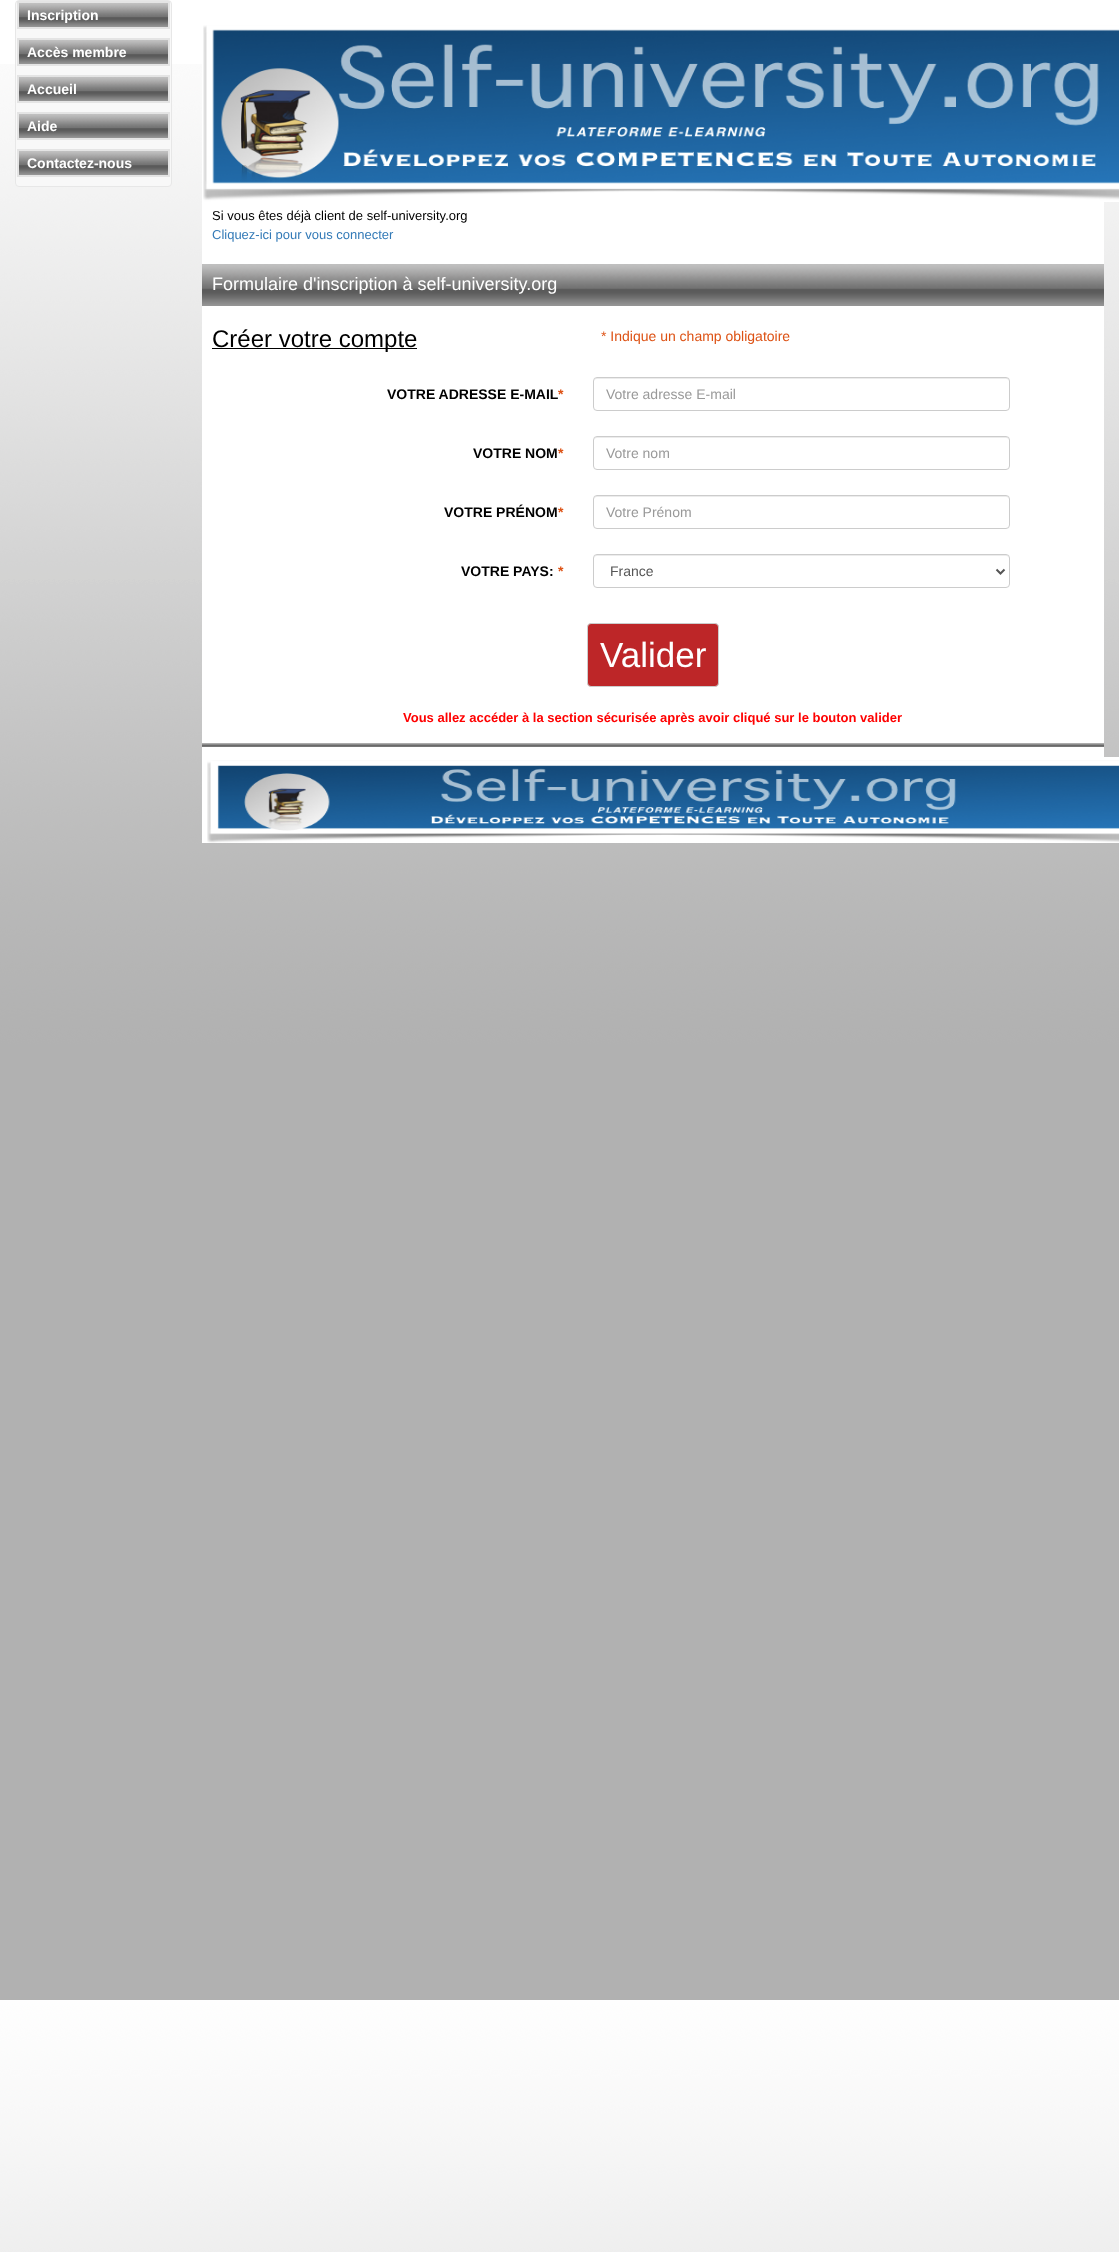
<!DOCTYPE html>
<meta charset="utf-8">
<style>body { margin: 0 } canvas { display: block }</style>
<canvas id="canvas" width="1119" height="2252"></canvas>
<script type="module">
  const canvas = document.getElementById("canvas");
  const g = canvas.getContext("2d");
  g.miterLimit = 4;
  g.fontKerning = "normal";
  function drawText(s, x, y, [font, color]) {
    g.font = font;
    g.fillStyle = color;
    g.fillText(s, x, y);
  }
  function fillBox(x, y, w, h, color) {
    g.fillStyle = color;
    g.fillRect(x, y, w, h);
  }
  async function drawPicture(src, x, y, w, h) {
    const img = new Image();
    img.src = src;
    await img.decode();
    g.drawImage(img, x, y, w, h);
  }

  const s1 = ["bold 14px Liberation Sans", "#FFFFFF"];
  const s2 = ["13px Liberation Sans", "#000000"];
  const s3 = ["13px Liberation Sans", "#337AB7"];
  const s4 = ["18px Liberation Sans", "#FFFFFF"];
  const s5 = ["24px Liberation Sans", "#000000"];
  const s6 = ["14px Liberation Sans", "#DD5113"];
  const s7 = ["bold 14px Liberation Sans", "#000000"];
  const s8 = ["bold 14px Liberation Sans", "#DD5113"];
  const s9 = ["14px Liberation Sans", "#999999"];
  const s10 = ["14px Liberation Sans", "#555555"];
  const s11 = ["35px Liberation Sans", "#FFFFFF"];
  const s12 = ["bold 13px Liberation Sans", "#FF0000"];

  fillBox(0, 0, 1119, 2252, "#FFFFFF");
  await drawPicture("pic1.png", 0, 64, 1119, 2188);
  g.fillStyle = "#F8F8F8";
  g.beginPath();
  g.roundRect(15.5, 0.5, 156, 186, 3.5);
  g.fill();
  g.strokeStyle = "#E7E7E7";
  g.stroke();
  g.strokeStyle = "#E4E4E4";
  g.lineWidth = 2;
  g.strokeRect(18, 2, 151, 26);
  await drawPicture("pic2.png", 19, 3, 149, 24);
  drawText("Inscription", 27, 20, s1);
  g.strokeRect(18, 39, 151, 26);
  await drawPicture("pic2.png", 19, 40, 149, 24);
  drawText("Accès membre", 27, 57, s1);
  g.strokeRect(18, 76, 151, 26);
  await drawPicture("pic2.png", 19, 77, 149, 24);
  drawText("Accueil", 27, 94, s1);
  g.strokeRect(18, 113, 151, 26);
  await drawPicture("pic2.png", 19, 114, 149, 24);
  drawText("Aide", 27, 131, s1);
  g.strokeRect(18, 150, 151, 26);
  await drawPicture("pic2.png", 19, 151, 149, 24);
  drawText("Contactez-nous", 27, 168, s1);
  fillBox(202, 64, 902, 779, "#FFFFFF");
  await drawPicture("pic3.png", 203, 25, 916, 177);
  drawText("Si vous êtes déjà client de self-university.org", 212, 220, s2);
  drawText("Cliquez-ici pour vous connecter", 212, 239, s3);
  await drawPicture("pic4.png", 202, 264, 902, 42);
  drawText("Formulaire d'inscription à self-university.org", 212, 290, s4);
  fillBox(212, 348, 205, 1, "#000000");
  drawText("Créer votre compte", 212, 347, s5);
  drawText("* Indique un champ obligatoire", 601, 341, s6);
  drawText("VOTRE ADRESSE E-MAIL", 387, 399, s7);
  drawText("*", 558, 399, s8);
  g.fillStyle = "#ECECEC";
  g.beginPath();
  g.moveTo(597, 379);
  g.lineTo(1006, 379);
  g.bezierCurveTo(1008, 379, 1009, 380, 1009, 382);
  g.bezierCurveTo(1009, 380, 1008, 378, 1006, 378);
  g.lineTo(597, 378);
  g.bezierCurveTo(595, 378, 594, 380, 594, 382);
  g.bezierCurveTo(594, 380, 595, 379, 597, 379);
  g.closePath();
  g.fill();
  g.beginPath();
  g.roundRect(593.5, 377.5, 416, 33, 3.5);
  g.strokeStyle = "#CCCCCC";
  g.lineWidth = 1;
  g.stroke();
  drawText("Votre adresse E-mail", 606, 399, s9);
  drawText("VOTRE NOM", 473, 458, s7);
  drawText("*", 558, 458, s8);
  g.fillStyle = "#ECECEC";
  g.beginPath();
  g.moveTo(597, 438);
  g.lineTo(1006, 438);
  g.bezierCurveTo(1008, 438, 1009, 439, 1009, 441);
  g.bezierCurveTo(1009, 439, 1008, 437, 1006, 437);
  g.lineTo(597, 437);
  g.bezierCurveTo(595, 437, 594, 439, 594, 441);
  g.bezierCurveTo(594, 439, 595, 438, 597, 438);
  g.closePath();
  g.fill();
  g.beginPath();
  g.roundRect(593.5, 436.5, 416, 33, 3.5);
  g.stroke();
  drawText("Votre nom", 606, 458, s9);
  drawText("VOTRE PRÉNOM", 444, 517, s7);
  drawText("*", 558, 517, s8);
  g.fillStyle = "#ECECEC";
  g.beginPath();
  g.moveTo(597, 497);
  g.lineTo(1006, 497);
  g.bezierCurveTo(1008, 497, 1009, 498, 1009, 500);
  g.bezierCurveTo(1009, 498, 1008, 496, 1006, 496);
  g.lineTo(597, 496);
  g.bezierCurveTo(595, 496, 594, 498, 594, 500);
  g.bezierCurveTo(594, 498, 595, 497, 597, 497);
  g.closePath();
  g.fill();
  g.beginPath();
  g.roundRect(593.5, 495.5, 416, 33, 3.5);
  g.stroke();
  drawText("Votre Prénom", 606, 517, s9);
  drawText("VOTRE PAYS:", 461, 576, s7);
  drawText("*", 558, 576, s8);
  g.fillStyle = "#ECECEC";
  g.beginPath();
  g.moveTo(597, 556);
  g.lineTo(1006, 556);
  g.bezierCurveTo(1008, 556, 1009, 557, 1009, 559);
  g.bezierCurveTo(1009, 557, 1008, 555, 1006, 555);
  g.lineTo(597, 555);
  g.bezierCurveTo(595, 555, 594, 557, 594, 559);
  g.bezierCurveTo(594, 557, 595, 556, 597, 556);
  g.closePath();
  g.fill();
  g.beginPath();
  g.roundRect(593.5, 554.5, 416, 33, 3.5);
  g.stroke();
  g.beginPath();
  g.moveTo(996.5, 569.5);
  g.lineTo(1000.5, 573.5);
  g.lineTo(1004.5, 569.5);
  g.strokeStyle = "#555555";
  g.lineWidth = 2;
  g.stroke();
  drawText("France", 610, 576, s10);
  g.fillStyle = "#BD2628";
  g.beginPath();
  g.roundRect(587.5, 623.5, 131, 63, 3.5);
  g.fill();
  g.strokeStyle = "#CCCCCC";
  g.lineWidth = 1;
  g.stroke();
  drawText("Valider", 600, 667, s11);
  drawText("Vous allez accéder à la section sécurisée après avoir cliqué sur le bouton valider", 403, 722, s12);
  await drawPicture("pic5.png", 202, 743, 902, 4);
  await drawPicture("pic6.png", 207, 757, 912, 86);
</script>
